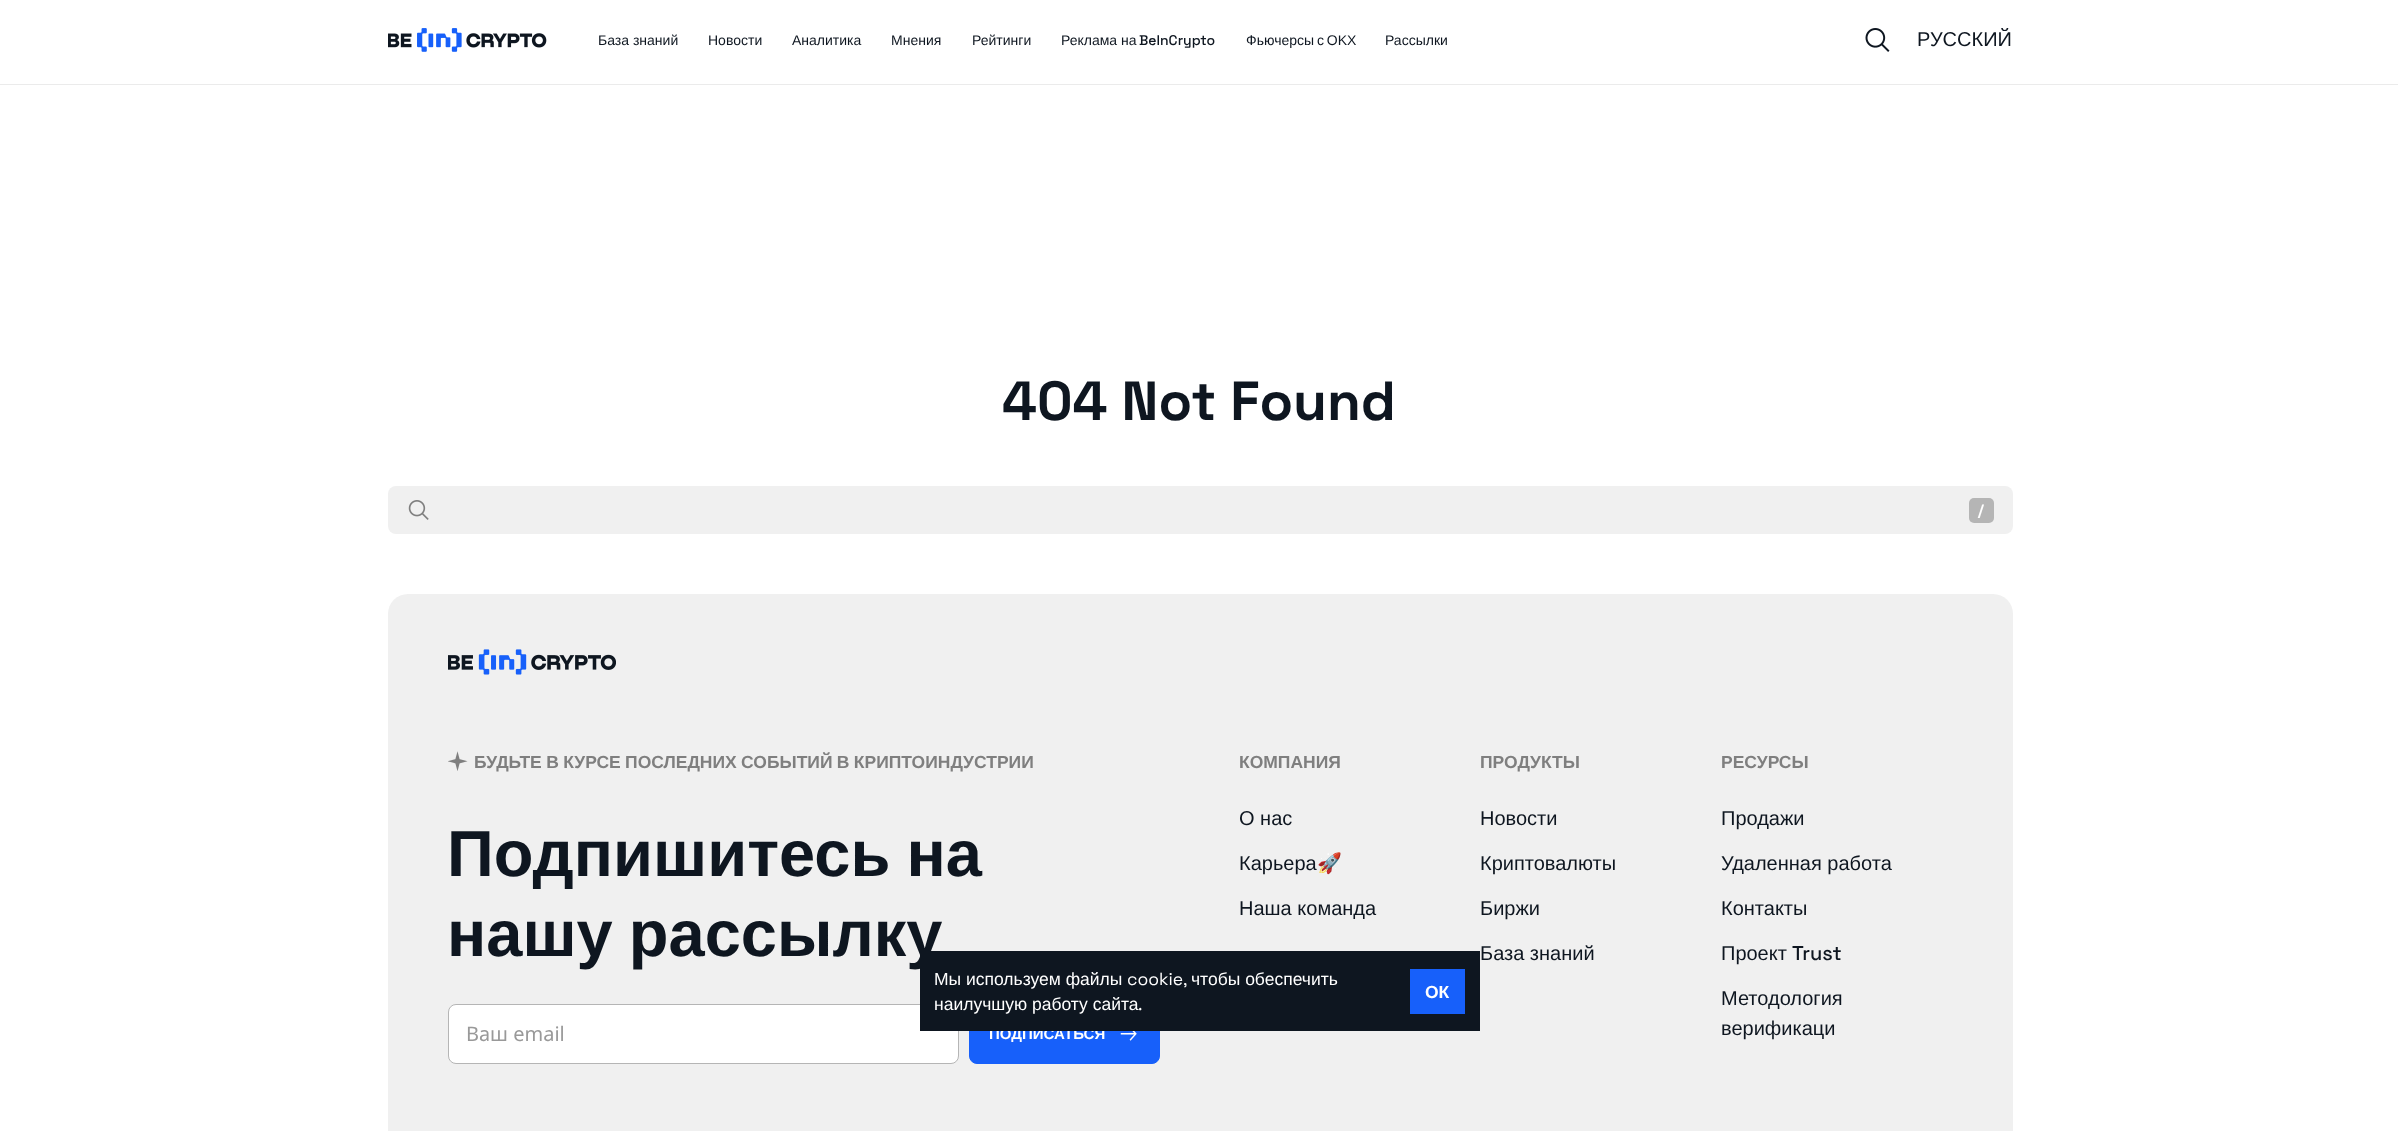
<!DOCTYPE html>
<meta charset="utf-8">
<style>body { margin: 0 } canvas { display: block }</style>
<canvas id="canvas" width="2398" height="1131"></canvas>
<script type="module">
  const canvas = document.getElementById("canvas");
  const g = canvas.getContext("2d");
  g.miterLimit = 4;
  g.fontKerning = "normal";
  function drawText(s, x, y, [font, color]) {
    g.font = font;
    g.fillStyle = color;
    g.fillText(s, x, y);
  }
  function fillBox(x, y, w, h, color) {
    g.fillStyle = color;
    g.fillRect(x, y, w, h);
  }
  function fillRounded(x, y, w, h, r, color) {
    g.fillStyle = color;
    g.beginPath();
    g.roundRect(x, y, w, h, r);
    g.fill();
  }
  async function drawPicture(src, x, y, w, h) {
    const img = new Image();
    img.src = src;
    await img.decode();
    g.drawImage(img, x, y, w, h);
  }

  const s1 = ["14px Liberation Sans", "#0E1620"];
  const s2 = ["500 14px Space Grotesk", "#0E1620"];
  const s3 = ["20px Liberation Sans", "#0E1620"];
  const s4 = ["bold 55px Space Grotesk", "#0E1620"];
  const s5 = ["bold 15px Space Grotesk", "#FFFFFF"];
  const s6 = ["bold 17.5px Liberation Sans", "#7F7F7F"];
  const s7 = ["bold 65px Liberation Sans", "#0E1620"];
  const s8 = ["20px Noto Sans", "#999999"];
  const s9 = ["bold 15px Liberation Sans", "#FFFFFF"];
  const s10 = ["20px Noto Color Emoji", "#0E1620"];
  const s11 = ["500 20px Space Grotesk", "#0E1620"];
  const s12 = ["17.5px Liberation Sans", "#FFFFFF"];
  const s13 = ["17.5px Space Grotesk", "#FFFFFF"];
  const s14 = ["bold 17.5px Liberation Sans", "#FFFFFF"];

  fillBox(0, 0, 2398, 1131, "#FFFFFF");
  fillBox(0, 84, 2398, 1, "#EBEBEB");
  await drawPicture("pic1.png", 388, 28, 159, 24);
  drawText("База знаний", 598, 45, s1);
  drawText("Новости", 708, 45, s1);
  drawText("Аналитика", 792, 45, s1);
  drawText("Мнения", 891, 45, s1);
  drawText("Рейтинги", 972, 45, s1);
  drawText("Реклама на", 1061, 45, s1);
  drawText("BeInCrypto", 1139, 45, s2);
  g.wordSpacing = "-1px";
  drawText("Фьючерсы с OKX", 1246, 45, s1);
  g.wordSpacing = "0px";
  drawText("Рассылки", 1385, 45, s1);
  await drawPicture("pic2.png", 1865, 28, 25, 24);
  drawText("РУССКИЙ", 1917, 46, s3);
  drawText("404 Not Found", 1002, 420, s4);
  fillRounded(388, 486, 1625, 48, 8, "#F0F0F0");
  await drawPicture("pic3.png", 408, 500, 21, 20);
  fillRounded(1969, 498, 25, 25, 5, "#B5B5B5");
  drawText("/", 1978, 515, s5);
  fillRounded(388, 594, 1625, 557, 20, "#F0F0F0");
  await drawPicture("pic4.png", 448, 649, 168, 26);
  await drawPicture("pic5.png", 448, 751, 20, 20);
  g.wordSpacing = "-0.5px";
  drawText("БУДЬТЕ В КУРСЕ ПОСЛЕДНИХ СОБЫТИЙ В КРИПТОИНДУСТРИИ", 474, 768, s6);
  g.wordSpacing = "-2px";
  drawText("Подпишитесь на", 447, 876, s7);
  drawText("нашу рассылку", 447, 956, s7);
  g.fillStyle = "#FFFFFF";
  g.beginPath();
  g.roundRect(448.5, 1004.5, 510, 59, 7.5);
  g.fill();
  g.strokeStyle = "#B5B5B5";
  g.stroke();
  g.wordSpacing = "0px";
  drawText("Ваш email", 466, 1041, s8);
  g.fillStyle = "#1760FA";
  g.beginPath();
  g.roundRect(969.5, 1004.5, 190, 59, 7.5);
  g.fill();
  g.strokeStyle = "#1760FA";
  g.stroke();
  drawText("ПОДПИСАТЬСЯ", 989, 1039, s9);
  await drawPicture("pic6.png", 1120, 1031, 17, 10);
  drawText("КОМПАНИЯ", 1239, 768, s6);
  drawText("О нас", 1239, 825, s3);
  drawText("Карьера", 1239, 870, s3);
  drawText("🚀", 1317, 870, s10);
  drawText("Наша команда", 1239, 915, s3);
  drawText("ПРОДУКТЫ", 1480, 768, s6);
  drawText("Новости", 1480, 825, s3);
  drawText("Криптовалюты", 1480, 870, s3);
  drawText("Биржи", 1480, 915, s3);
  drawText("База знаний", 1480, 960, s3);
  drawText("РЕСУРСЫ", 1721, 768, s6);
  drawText("Продажи", 1721, 825, s3);
  drawText("Удаленная работа", 1721, 870, s3);
  drawText("Контакты", 1721, 915, s3);
  drawText("Проект", 1721, 960, s3);
  drawText("Trust", 1792, 960, s11);
  drawText("Методология", 1721, 1005, s3);
  drawText("верификаци", 1721, 1035, s3);
  fillBox(920, 951, 560, 80, "#0E1620");
  drawText("Мы используем файлы", 934, 985, s12);
  drawText("cookie,", 1127, 985, s13);
  drawText("чтобы обеспечить", 1191, 985, s12);
  drawText("наилучшую работу сайта", 934, 1010, s12);
  drawText(".", 1138, 1010, s13);
  fillBox(1410, 969, 55, 45, "#1760FA");
  drawText("ОК", 1425, 998, s14);
</script>
